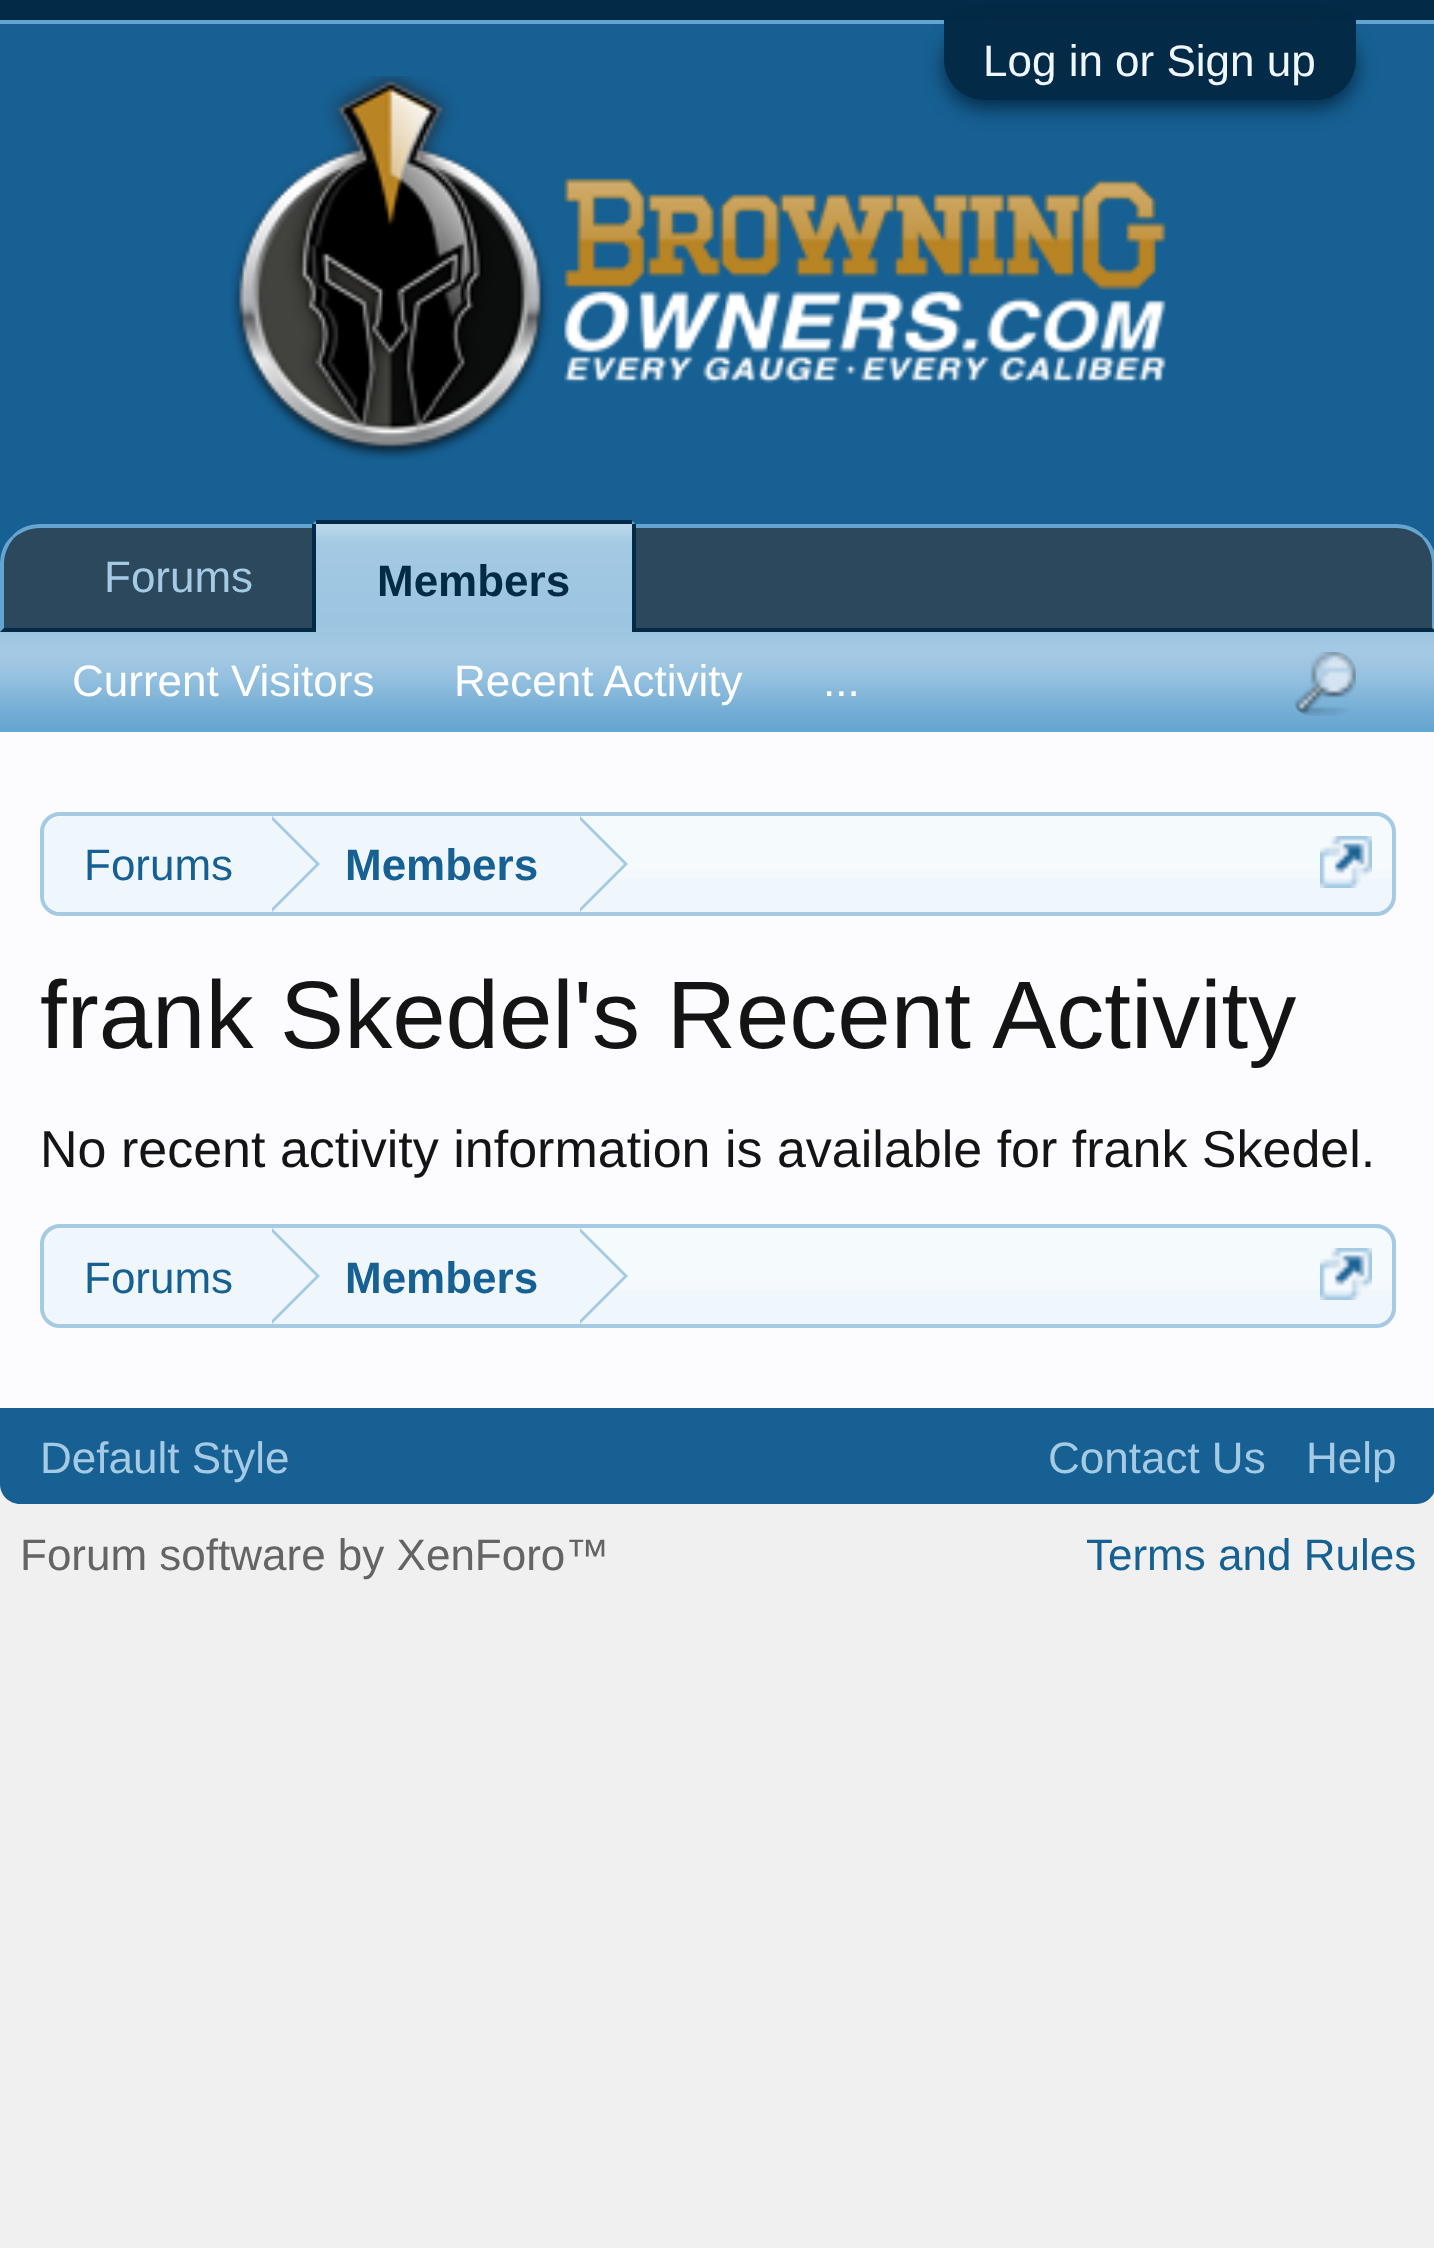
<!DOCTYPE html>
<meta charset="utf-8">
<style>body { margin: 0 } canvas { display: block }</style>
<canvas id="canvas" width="1434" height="2248"></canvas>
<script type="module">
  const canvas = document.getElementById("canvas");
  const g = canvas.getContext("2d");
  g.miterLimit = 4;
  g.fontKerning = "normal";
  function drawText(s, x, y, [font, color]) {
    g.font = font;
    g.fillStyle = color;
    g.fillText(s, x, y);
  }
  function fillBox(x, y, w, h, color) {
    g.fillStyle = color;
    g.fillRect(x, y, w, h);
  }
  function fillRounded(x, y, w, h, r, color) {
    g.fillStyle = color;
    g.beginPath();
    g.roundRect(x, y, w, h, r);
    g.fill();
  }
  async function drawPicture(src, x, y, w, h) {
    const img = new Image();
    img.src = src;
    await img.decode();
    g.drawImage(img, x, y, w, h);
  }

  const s1 = ["44px Liberation Sans", "#F0F7FC"];
  const s2 = ["44px Liberation Sans", "#A5CAE4"];
  const s3 = ["bold 44px Liberation Sans", "#032A46"];
  const s4 = ["44px Liberation Sans", "#FFFFFF"];
  const s5 = ["44px Liberation Sans", "#176093"];
  const s6 = ["bold 44px Liberation Sans", "#176093"];
  const s7 = ["96px Liberation Sans", "#141414"];
  const s8 = ["52px Liberation Sans", "#141414"];
  const s9 = ["44px Liberation Sans", "#646464"];

  fillBox(0, 0, 1434, 2248, "#F0F0F0");
  fillBox(0, 0, 1434, 20, "#032A46");
  fillBox(0, 20, 1434, 4, "#65A5D1");
  fillBox(0, 24, 1434, 540, "#176093");
  await drawPicture("pic1.png", 230, 76, 936, 385);
  g.fillStyle = "#032A46";
  g.filter = "blur(10px)";
  g.beginPath();
  g.roundRect(944, 28, 412, 80, 40);
  g.fill();
  g.filter = "none";
  g.beginPath();
  g.roundRect(944, 20, 412, 80, [0, 0, 40, 40]);
  g.fill();
  drawText("Log in or Sign up", 983, 76, s1);
  g.fillStyle = "#2B485C";
  g.beginPath();
  g.moveTo(40, 524);
  g.lineTo(1396, 524);
  g.bezierCurveTo(1418, 524, 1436, 542, 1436, 564);
  g.lineTo(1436, 632);
  g.lineTo(0, 632);
  g.lineTo(0, 564);
  g.bezierCurveTo(0, 542, 18, 524, 40, 524);
  g.closePath();
  g.fill();
  g.fillStyle = "#65A5D1";
  g.beginPath();
  g.moveTo(40, 524);
  g.bezierCurveTo(29, 524, 19, 528, 12, 536);
  g.lineTo(14, 538);
  g.bezierCurveTo(21, 532, 30, 528, 40, 528);
  g.lineTo(1396, 528);
  g.bezierCurveTo(1406, 528, 1415, 532, 1422, 538);
  g.lineTo(1424, 536);
  g.bezierCurveTo(1417, 528, 1407, 524, 1396, 524);
  g.closePath();
  g.fill();
  g.beginPath();
  g.moveTo(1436, 632);
  g.lineTo(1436, 564);
  g.bezierCurveTo(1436, 553, 1432, 543, 1424, 536);
  g.lineTo(1422, 538);
  g.bezierCurveTo(1428, 545, 1432, 554, 1432, 564);
  g.lineTo(1432, 628);
  g.closePath();
  g.fill();
  g.fillStyle = "#032A46";
  g.beginPath();
  g.moveTo(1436, 632);
  g.lineTo(1432, 628);
  g.lineTo(4, 628);
  g.lineTo(0, 632);
  g.closePath();
  g.fill();
  g.fillStyle = "#65A5D1";
  g.beginPath();
  g.moveTo(0, 632);
  g.lineTo(4, 628);
  g.lineTo(4, 564);
  g.bezierCurveTo(4, 554, 8, 545, 14, 538);
  g.lineTo(12, 536);
  g.bezierCurveTo(4, 543, 0, 553, 0, 564);
  g.closePath();
  g.fill();
  drawText("Forums", 104, 592, s2);
  g.fillStyle = "#65A5D1";
  g.beginPath();
  g.roundRect(312, 520, 324, 112, [8, 8, 0, 0]);
  g.fill();
  await drawPicture("pic2.png", 316, 524, 316, 108);
  fillBox(316, 520, 316, 4, "#032A46");
  fillBox(632, 524, 4, 108, "#032A46");
  fillBox(312, 524, 4, 108, "#032A46");
  drawText("Members", 377, 596, s3);
  fillBox(0, 632, 1434, 100, "#65A5D1");
  await drawPicture("pic3.png", 0, 632, 1434, 95);
  drawText("Current Visitors", 72, 696, s4);
  drawText("Recent Activity", 454, 696, s4);
  drawText("...", 823, 696, s4);
  await drawPicture("pic4.png", 1294, 652, 62, 64);
  fillBox(0, 732, 1434, 676, "#FCFCFF");
  fillRounded(40, 812, 1356, 104, 20, "#F0F7FC");
  await drawPicture("pic5.png", 40, 816, 1356, 62);
  g.beginPath();
  g.roundRect(42, 814, 1352, 100, 18);
  g.strokeStyle = "#A5CAE4";
  g.lineWidth = 4;
  g.stroke();
  g.save();
  g.beginPath();
  g.roundRect(44, 816, 1348, 96, 16);
  g.clip();
  g.beginPath();
  g.roundRect(44, 816, 228, 100, [20, 0, 0, 20]);
  g.fill();
  g.restore();
  drawText("Forums", 84, 880, s5);
  fillBox(272, 816, 308, 62, "#F0F7FC");
  g.fillStyle = "#A5CAE4";
  g.beginPath();
  g.moveTo(272, 912);
  g.lineTo(272, 816);
  g.lineTo(320, 864);
  g.closePath();
  g.fill();
  g.fillStyle = "#F0F7FC";
  g.beginPath();
  g.moveTo(268, 912);
  g.lineTo(268, 816);
  g.lineTo(316, 864);
  g.closePath();
  g.fill();
  drawText("Members", 345, 880, s6);
  g.fillStyle = "#A5CAE4";
  g.beginPath();
  g.moveTo(580, 912);
  g.lineTo(580, 816);
  g.lineTo(628, 864);
  g.closePath();
  g.fill();
  g.fillStyle = "#F0F7FC";
  g.beginPath();
  g.moveTo(576, 912);
  g.lineTo(576, 816);
  g.lineTo(624, 864);
  g.closePath();
  g.fill();
  await drawPicture("pic6.png", 1320, 836, 52, 52);
  drawText("frank Skedel's Recent Activity", 40, 1048, s7);
  drawText("No recent activity information is available for frank Skedel.", 40, 1167, s8);
  fillRounded(40, 1224, 1356, 104, 20, "#F0F7FC");
  await drawPicture("pic5.png", 40, 1228, 1356, 62);
  g.beginPath();
  g.roundRect(42, 1226, 1352, 100, 18);
  g.stroke();
  g.save();
  g.beginPath();
  g.roundRect(44, 1228, 1348, 96, 16);
  g.clip();
  g.beginPath();
  g.roundRect(44, 1228, 228, 100, [20, 0, 0, 20]);
  g.fill();
  g.restore();
  drawText("Forums", 84, 1293, s5);
  fillBox(272, 1228, 308, 62, "#F0F7FC");
  g.fillStyle = "#A5CAE4";
  g.beginPath();
  g.moveTo(272, 1324);
  g.lineTo(272, 1228);
  g.lineTo(320, 1276);
  g.closePath();
  g.fill();
  g.fillStyle = "#F0F7FC";
  g.beginPath();
  g.moveTo(268, 1324);
  g.lineTo(268, 1228);
  g.lineTo(316, 1276);
  g.closePath();
  g.fill();
  drawText("Members", 345, 1293, s6);
  g.fillStyle = "#A5CAE4";
  g.beginPath();
  g.moveTo(580, 1324);
  g.lineTo(580, 1228);
  g.lineTo(628, 1276);
  g.closePath();
  g.fill();
  g.fillStyle = "#F0F7FC";
  g.beginPath();
  g.moveTo(576, 1324);
  g.lineTo(576, 1228);
  g.lineTo(624, 1276);
  g.closePath();
  g.fill();
  await drawPicture("pic6.png", 1320, 1248, 52, 52);
  g.fillStyle = "#176093";
  g.beginPath();
  g.moveTo(0, 1408);
  g.lineTo(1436, 1408);
  g.lineTo(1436, 1484);
  g.bezierCurveTo(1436, 1495, 1427, 1504, 1416, 1504);
  g.lineTo(20, 1504);
  g.bezierCurveTo(9, 1504, 0, 1495, 0, 1484);
  g.closePath();
  g.fill();
  drawText("Default Style", 40, 1473, s2);
  drawText("Contact Us", 1048, 1473, s2);
  drawText("Help", 1306, 1473, s2);
  drawText("Forum software by XenForo™", 20, 1570, s9);
  drawText("Terms and Rules", 1086, 1570, s5);
</script>
